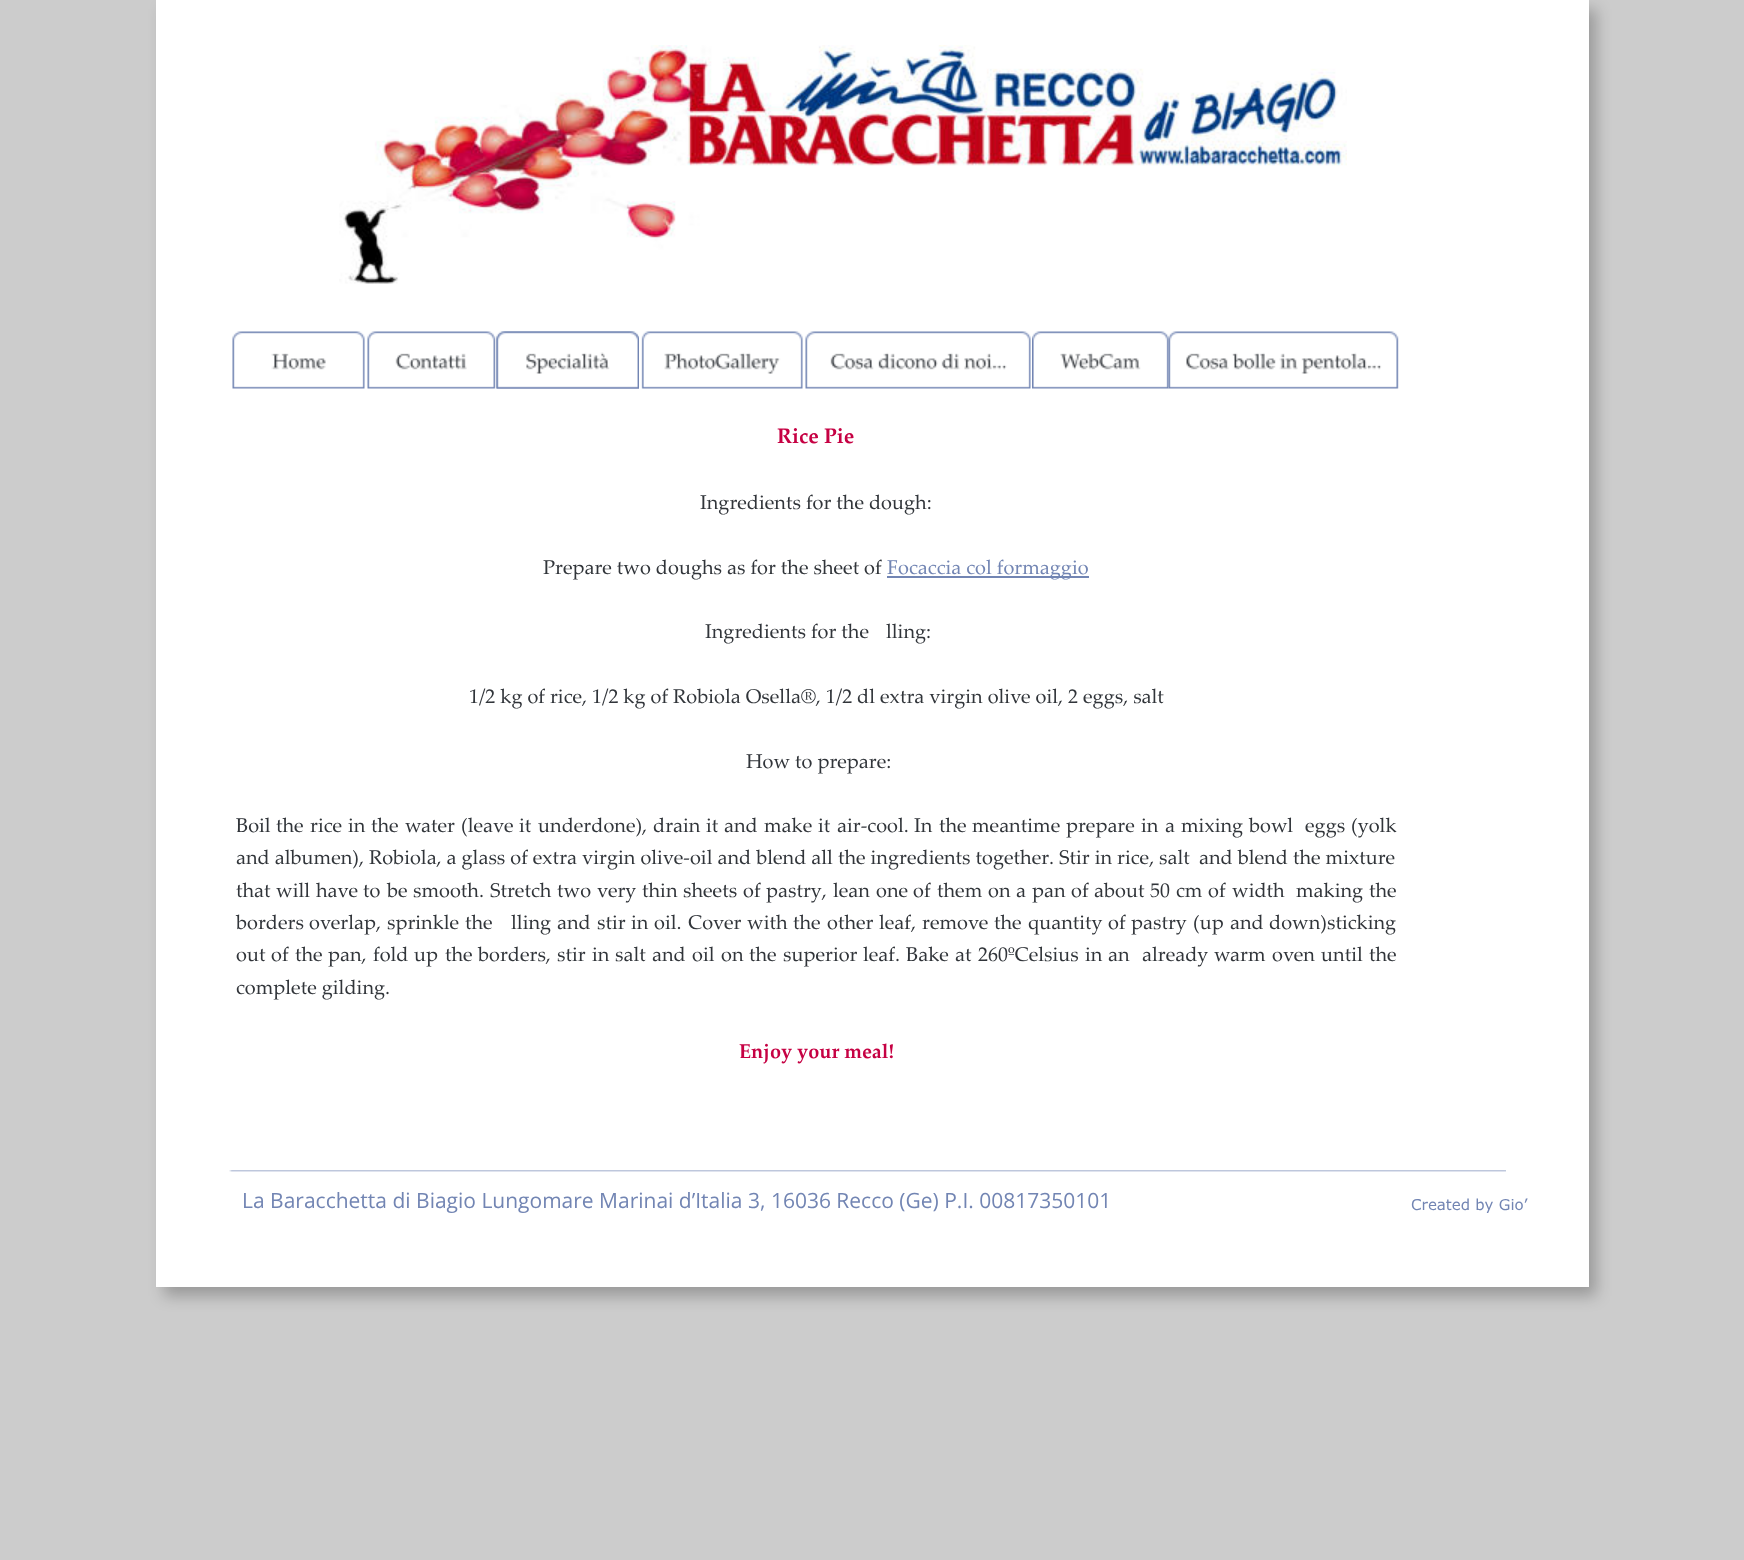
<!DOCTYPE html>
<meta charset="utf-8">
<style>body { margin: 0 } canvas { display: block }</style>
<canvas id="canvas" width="1744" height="1560"></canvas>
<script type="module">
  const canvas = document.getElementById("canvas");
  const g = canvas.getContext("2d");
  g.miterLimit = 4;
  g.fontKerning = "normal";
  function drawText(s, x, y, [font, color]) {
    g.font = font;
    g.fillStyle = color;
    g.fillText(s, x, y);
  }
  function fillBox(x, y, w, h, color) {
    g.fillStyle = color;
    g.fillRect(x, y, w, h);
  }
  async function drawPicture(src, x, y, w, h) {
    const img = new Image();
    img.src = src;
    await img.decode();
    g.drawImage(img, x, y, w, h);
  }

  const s1 = ["bold 21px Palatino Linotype", "#C60143"];
  const s2 = ["19.95px Palatino Linotype", "#31353A"];
  const s3 = ["19.95px Palatino Linotype", "#7285B3"];
  const s4 = ["bold 19.95px Palatino Linotype", "#C60143"];
  const s5 = ["21px Open Sans", "#7285B3"];
  const s6 = ["15px Verdana", "#7285B3"];

  fillBox(0, 0, 1744, 1560, "#CCCCCC");
  g.fillStyle = "rgba(0, 0, 0, 0.25)";
  g.filter = "blur(7.5px)";
  g.beginPath();
  g.rect(164, 9, 1432, 1287);
  g.fill();
  g.filter = "none";
  fillBox(156, 0, 1433, 1287, "#FFFFFF");
  await drawPicture("pic1.png", 339, 45, 1008, 239);
  await drawPicture("pic2.png", 232, 331, 133, 58);
  await drawPicture("pic3.png", 367, 331, 129, 58);
  await drawPicture("pic4.png", 496, 331, 143, 58);
  await drawPicture("pic5.png", 496, 331, 143, 58);
  await drawPicture("pic6.png", 641, 331, 162, 58);
  await drawPicture("pic7.png", 805, 331, 226, 58);
  await drawPicture("pic8.png", 1032, 331, 137, 58);
  await drawPicture("pic9.png", 1168, 331, 231, 58);
  drawText("Rice Pie", 777, 443, s1);
  drawText("Ingredients for the dough:", 700, 509, s2);
  drawText("Prepare two doughs as for the sheet of", 543, 574, s2);
  fillBox(887, 576, 202, 2, "#7285B3");
  drawText("Focaccia col formaggio", 887, 574, s3);
  drawText("Ingredients for the filling:", 705, 638, s2);
  drawText("1/2 kg of rice, 1/2 kg of Robiola Osella®, 1/2 dl extra virgin olive oil, 2 eggs, salt", 469, 703, s2);
  drawText("How to prepare:", 746, 768, s2);
  drawText("Boil", 236, 832, s2);
  drawText("the", 276, 832, s2);
  drawText("rice", 310, 832, s2);
  drawText("in", 348, 832, s2);
  drawText("the", 371, 832, s2);
  drawText("water", 405, 832, s2);
  drawText("(leave", 461, 832, s2);
  drawText("it", 519, 832, s2);
  drawText("underdone),", 538, 832, s2);
  drawText("drain", 653, 832, s2);
  drawText("it", 706, 832, s2);
  drawText("and", 724, 832, s2);
  drawText("make", 764, 832, s2);
  drawText("it", 818, 832, s2);
  drawText("air-cool.", 837, 832, s2);
  drawText("In", 914, 832, s2);
  drawText("the", 939, 832, s2);
  drawText("meantime", 972, 832, s2);
  drawText("prepare", 1066, 832, s2);
  drawText("in", 1141, 832, s2);
  drawText("a", 1165, 832, s2);
  drawText("mixing", 1181, 832, s2);
  drawText("bowl", 1249, 832, s2);
  drawText("eggs", 1305, 832, s2);
  drawText("(yolk", 1351, 832, s2);
  drawText("and albumen), Robiola, a glass of extra virgin olive-oil and blend all the ingredients together. Stir in rice, salt", 236, 864, s2);
  drawText("and blend the mixture", 1199, 864, s2);
  drawText("that", 236, 897, s2);
  drawText("will", 276, 897, s2);
  drawText("have", 316, 897, s2);
  drawText("to", 363, 897, s2);
  drawText("be", 387, 897, s2);
  drawText("smooth.", 413, 897, s2);
  drawText("Stretch", 490, 897, s2);
  drawText("two", 557, 897, s2);
  drawText("very", 597, 897, s2);
  drawText("thin", 642, 897, s2);
  drawText("sheets", 683, 897, s2);
  drawText("of", 743, 897, s2);
  drawText("pastry,", 766, 897, s2);
  drawText("lean", 833, 897, s2);
  drawText("one", 876, 897, s2);
  drawText("of", 913, 897, s2);
  drawText("them", 937, 897, s2);
  drawText("on", 988, 897, s2);
  drawText("a", 1016, 897, s2);
  drawText("pan", 1032, 897, s2);
  drawText("of", 1071, 897, s2);
  drawText("about", 1094, 897, s2);
  drawText("50", 1150, 897, s2);
  drawText("cm", 1176, 897, s2);
  drawText("of", 1208, 897, s2);
  drawText("width", 1232, 897, s2);
  drawText("making", 1296, 897, s2);
  drawText("the", 1369, 897, s2);
  drawText("borders", 236, 929, s2);
  drawText("overlap,", 309, 929, s2);
  drawText("sprinkle", 387, 929, s2);
  drawText("the", 465, 929, s2);
  drawText("filling", 499, 929, s2);
  drawText("and", 557, 929, s2);
  drawText("stir", 597, 929, s2);
  drawText("in", 631, 929, s2);
  drawText("oil.", 654, 929, s2);
  drawText("Cover", 688, 929, s2);
  drawText("with", 747, 929, s2);
  drawText("the", 793, 929, s2);
  drawText("other", 827, 929, s2);
  drawText("leaf,", 879, 929, s2);
  drawText("remove", 922, 929, s2);
  drawText("the", 994, 929, s2);
  drawText("quantity", 1028, 929, s2);
  drawText("of", 1108, 929, s2);
  drawText("pastry", 1131, 929, s2);
  drawText("(up", 1193, 929, s2);
  drawText("and", 1230, 929, s2);
  drawText("down)sticking", 1269, 929, s2);
  drawText("out", 236, 961, s2);
  drawText("of", 271, 961, s2);
  drawText("the", 295, 961, s2);
  drawText("pan,", 328, 961, s2);
  drawText("fold", 373, 961, s2);
  drawText("up", 414, 961, s2);
  drawText("the", 445, 961, s2);
  drawText("borders,", 478, 961, s2);
  drawText("stir", 557, 961, s2);
  drawText("in", 592, 961, s2);
  drawText("salt", 615, 961, s2);
  drawText("and", 652, 961, s2);
  drawText("oil", 692, 961, s2);
  drawText("on", 721, 961, s2);
  drawText("the", 749, 961, s2);
  drawText("superior", 783, 961, s2);
  drawText("leaf.", 863, 961, s2);
  drawText("Bake", 906, 961, s2);
  drawText("at", 955, 961, s2);
  drawText("260ºCelsius", 978, 961, s2);
  drawText("in", 1085, 961, s2);
  drawText("an", 1108, 961, s2);
  drawText("already", 1142, 961, s2);
  drawText("warm", 1214, 961, s2);
  drawText("oven", 1272, 961, s2);
  drawText("until", 1321, 961, s2);
  drawText("the", 1369, 961, s2);
  drawText("complete gilding.", 236, 994, s2);
  drawText("Enjoy your meal!", 739, 1058, s4);
  await drawPicture("pic10.png", 229, 1170, 1277, 2);
  drawText("La Baracchetta di Biagio Lungomare Marinai d’Italia 3, 16036 Recco (Ge) P.I. 00817350101", 242, 1208, s5);
  drawText("Created by Gio’", 1411, 1210, s6);
</script>
